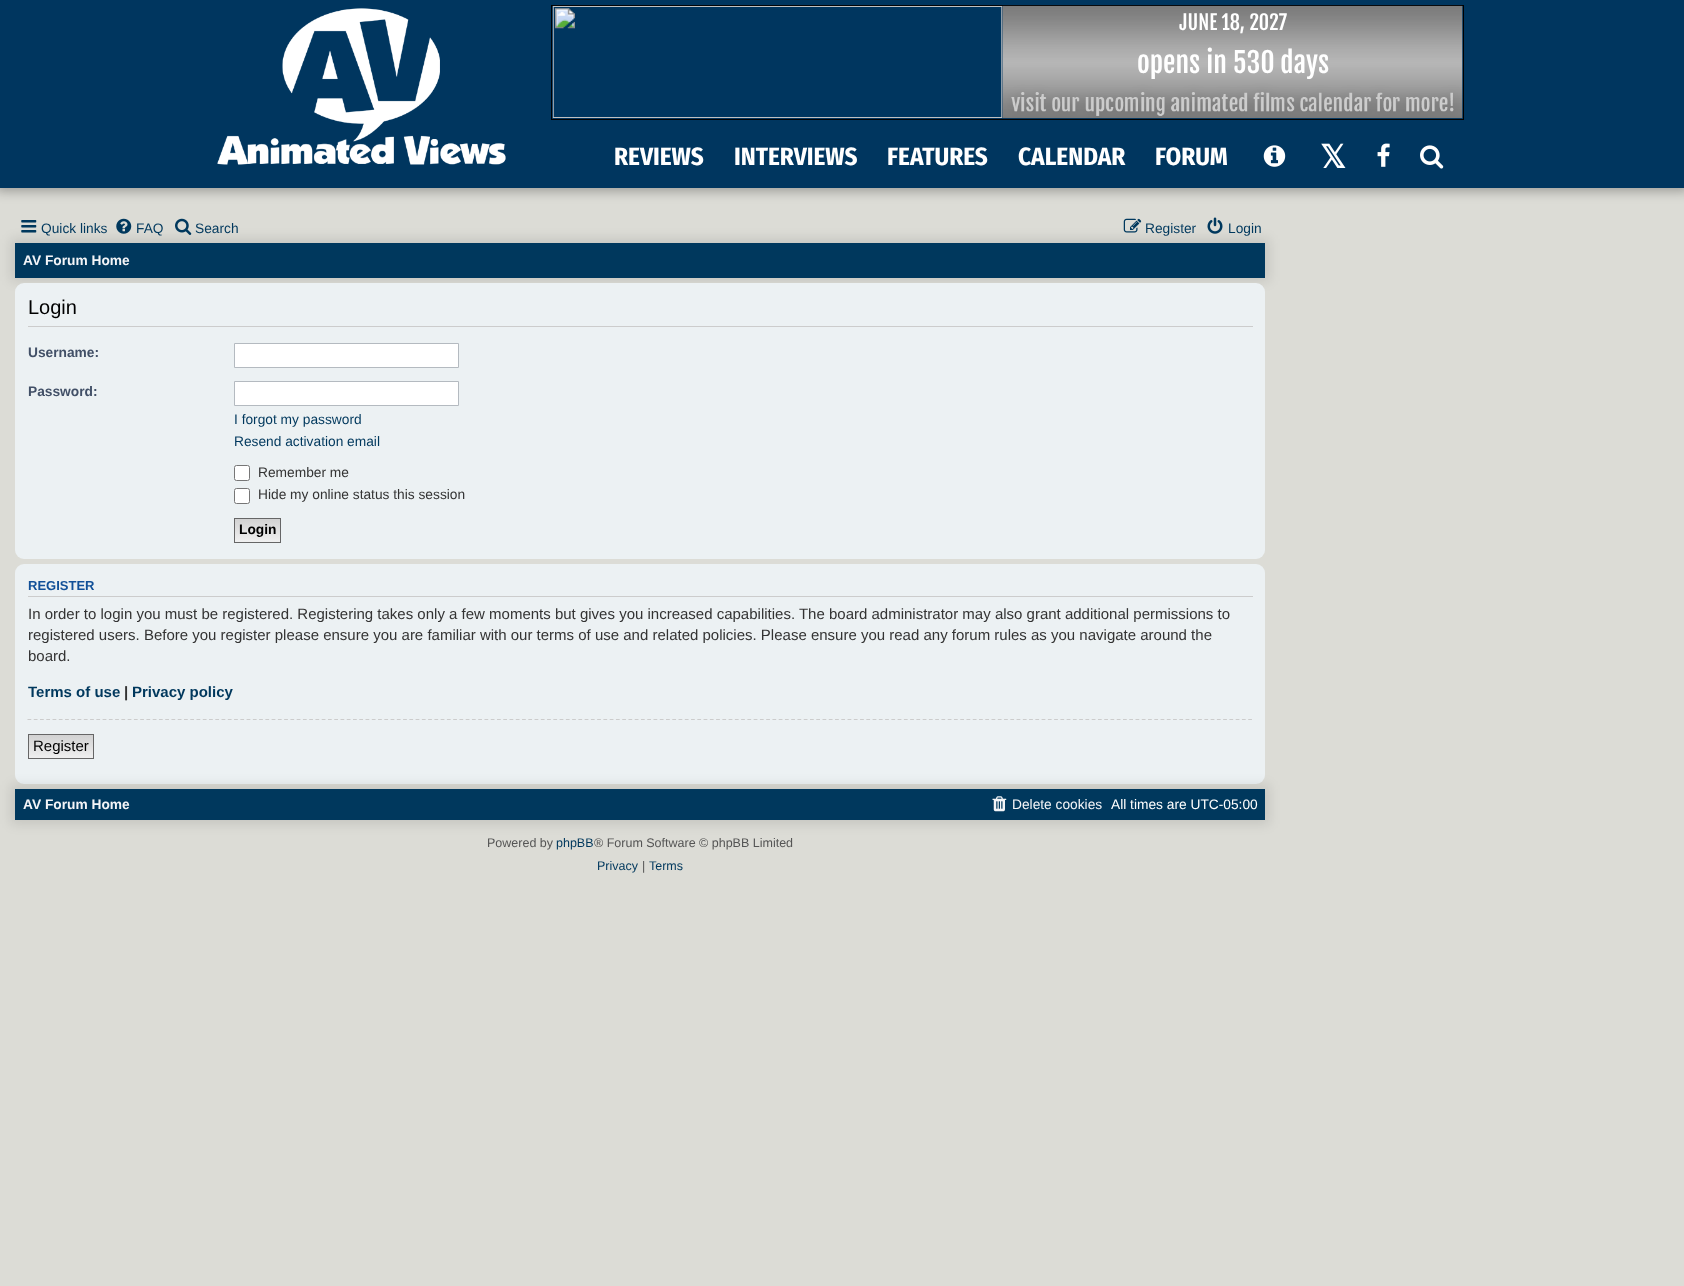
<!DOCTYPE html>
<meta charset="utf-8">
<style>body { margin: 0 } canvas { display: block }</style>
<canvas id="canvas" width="1684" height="1286"></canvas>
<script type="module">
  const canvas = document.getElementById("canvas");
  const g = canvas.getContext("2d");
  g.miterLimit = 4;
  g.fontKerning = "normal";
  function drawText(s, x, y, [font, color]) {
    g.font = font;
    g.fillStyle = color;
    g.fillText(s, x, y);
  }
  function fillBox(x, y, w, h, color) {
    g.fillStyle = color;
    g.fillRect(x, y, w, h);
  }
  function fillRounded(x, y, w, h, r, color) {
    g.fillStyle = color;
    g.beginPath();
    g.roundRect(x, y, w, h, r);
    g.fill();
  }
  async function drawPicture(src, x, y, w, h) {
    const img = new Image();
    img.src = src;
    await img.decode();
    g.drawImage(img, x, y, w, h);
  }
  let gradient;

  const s1 = ["bold 25px Fira Sans Condensed", "#FFFFFF"];
  const s2 = ["bold 32px DejaVu Sans", "#FFFFFF"];
  const s3 = ["13.75px Liberation Sans", "#00385D"];
  const s4 = ["bold 13.75px Liberation Sans", "#F4F5F8"];
  const s5 = ["20px Liberation Sans", "#000000"];
  const s6 = ["bold 13.75px Liberation Sans", "#425067"];
  const s7 = ["13.75px Liberation Sans", "#333333"];
  const s8 = ["bold 13.75px Liberation Sans", "#000000"];
  const s9 = ["bold 13px Liberation Sans", "#115098"];
  const s10 = ["15px Liberation Sans", "#333333"];
  const s11 = ["bold 15px Liberation Sans", "#00385D"];
  const s12 = ["bold 15px Liberation Sans", "#333333"];
  const s13 = ["15px Liberation Sans", "#000000"];
  const s14 = ["13.75px Liberation Sans", "#F4F5F8"];
  const s15 = ["13.75px Liberation Sans", "#FFFFFF"];
  const s16 = ["12.5px Liberation Sans", "#555555"];
  const s17 = ["12.5px Liberation Sans", "#00385D"];

  fillBox(0, 0, 1684, 1286, "#DCDCD6");
  g.fillStyle = "rgba(0, 0, 0, 0.3)";
  g.filter = "blur(6px)";
  g.beginPath();
  g.rect(-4, -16, 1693, 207);
  g.fill();
  g.filter = "none";
  fillBox(0, 0, 1684, 188, "#00365F");
  await drawPicture("pic1.png", 217, 8, 289, 157);
  g.strokeStyle = "#000000";
  g.strokeRect(551.5, 5.5, 912, 114);
  await drawPicture("pic2.png", 552, 5, 911, 114);
  drawText("REVIEWS", 614, 165, s1);
  drawText("INTERVIEWS", 734, 165, s1);
  drawText("FEATURES", 887, 165, s1);
  drawText("CALENDAR", 1018, 165, s1);
  drawText("FORUM", 1155, 165, s1);
  await drawPicture("pic3.png", 1263, 145, 23, 22);
  drawText("𝕏", 1320, 168, s2);
  await drawPicture("pic4.png", 1377, 143, 13, 24);
  await drawPicture("pic5.png", 1420, 145, 24, 24);
  g.fillStyle = "rgba(0, 0, 0, 0.1)";
  g.filter = "blur(6px)";
  g.beginPath();
  g.rect(11, 239, 1258, 42);
  g.fill();
  g.filter = "none";
  await drawPicture("pic6.png", 21, 220, 16, 13);
  drawText("Quick links", 41, 233, s3);
  await drawPicture("pic7.png", 116, 218, 16, 16);
  drawText("FAQ", 136, 233, s3);
  await drawPicture("pic8.png", 175, 218, 17, 17);
  drawText("Search", 195, 233, s3);
  await drawPicture("pic9.png", 1123, 218, 19, 15);
  drawText("Register", 1145, 233, s3);
  await drawPicture("pic10.png", 1207, 217, 16, 17);
  drawText("Login", 1228, 233, s3);
  fillBox(15, 243, 1250, 35, "#00385D");
  drawText("AV Forum Home", 23, 265, s4);
  fillRounded(15, 283, 1250, 276, 9, "#ECF1F3");
  fillBox(28, 326, 1225, 1, "#CCCCCC");
  drawText("Login", 28, 314, s5);
  drawText("Username:", 28, 357, s6);
  g.fillStyle = "#FFFFFF";
  g.beginPath();
  g.rect(234.5, 343.5, 224, 24);
  g.fill();
  g.strokeStyle = "#B4BAC0";
  g.stroke();
  drawText("Password:", 28, 396, s6);
  g.fillStyle = "#FFFFFF";
  g.beginPath();
  g.rect(234.5, 381.5, 224, 24);
  g.fill();
  g.stroke();
  drawText("I forgot my password", 234, 424, s3);
  drawText("Resend activation email", 234, 446, s3);
  g.fillStyle = "#FFFFFF";
  g.beginPath();
  g.roundRect(234.5, 465.5, 15, 15, 2);
  g.fill();
  g.strokeStyle = "#767676";
  g.stroke();
  drawText("Remember me", 258, 477, s7);
  g.fillStyle = "#FFFFFF";
  g.beginPath();
  g.roundRect(234.5, 488.5, 15, 15, 2);
  g.fill();
  g.stroke();
  drawText("Hide my online status this session", 258, 499, s7);
  fillBox(235, 541, 45, 1, "#EFEFEF");
  gradient = g.createLinearGradient(258, 519, 258, 541);
  gradient.addColorStop(0, "#D2D2D2");
  gradient.addColorStop(1, "#EFEFEF");
  g.fillStyle = gradient;
  g.fillRect(235, 519, 45, 22);
  g.strokeStyle = "#666666";
  g.strokeRect(234.5, 518.5, 46, 24);
  drawText("Login", 239, 534, s8);
  fillRounded(15, 564, 1250, 220, 9, "#ECF1F3");
  fillBox(28, 596, 1225, 1, "#CCCCCC");
  drawText("REGISTER", 28, 590, s9);
  drawText("In order to login you must be registered. Registering takes only a few moments but gives you increased capabilities. The board administrator may also grant additional permissions to", 28, 619, s10);
  drawText("registered users. Before you register please ensure you are familiar with our terms of use and related policies. Please ensure you read any forum rules as you navigate around the", 28, 640, s10);
  drawText("board.", 28, 661, s10);
  g.save();
  g.beginPath();
  g.rect(28, 570, 1225, 208);
  g.clip();
  drawText("Terms of use", 28, 697, s11);
  g.restore();
  drawText("|", 124, 697, s12);
  drawText("Privacy policy", 132, 697, s11);
  g.beginPath();
  g.moveTo(27.5, 719.5);
  g.lineTo(1252.5, 719.5);
  g.strokeStyle = "#CCCCCC";
  g.lineWidth = 1.2;
  g.setLineDash([3.75, 2.51]);
  g.stroke();
  gradient = g.createLinearGradient(61, 735, 61, 758);
  gradient.addColorStop(0, "#D2D2D2");
  gradient.addColorStop(1, "#EFEFEF");
  g.fillStyle = gradient;
  g.fillRect(29, 735, 64, 23);
  g.strokeStyle = "#666666";
  g.lineWidth = 1;
  g.setLineDash([]);
  g.strokeRect(28.5, 734.5, 65, 24);
  drawText("Register", 33, 751, s13);
  g.fillStyle = "rgba(0, 0, 0, 0.1)";
  g.filter = "blur(6px)";
  g.beginPath();
  g.rect(11, 785, 1258, 39);
  g.fill();
  g.filter = "none";
  fillBox(15, 789, 1250, 31, "#00385D");
  drawText("AV Forum Home", 23, 809, s4);
  await drawPicture("pic11.png", 992, 796, 15, 16);
  drawText("Delete cookies", 1012, 809, s14);
  drawText("All times are UTC-05:00", 1111, 809, s15);
  drawText("Powered by", 487, 847, s16);
  drawText("phpBB", 556, 847, s17);
  drawText("® Forum Software © phpBB Limited", 594, 847, s16);
  drawText("Privacy", 597, 870, s17);
  drawText("|", 642, 870, s16);
  drawText("Terms", 649, 870, s17);
</script>
